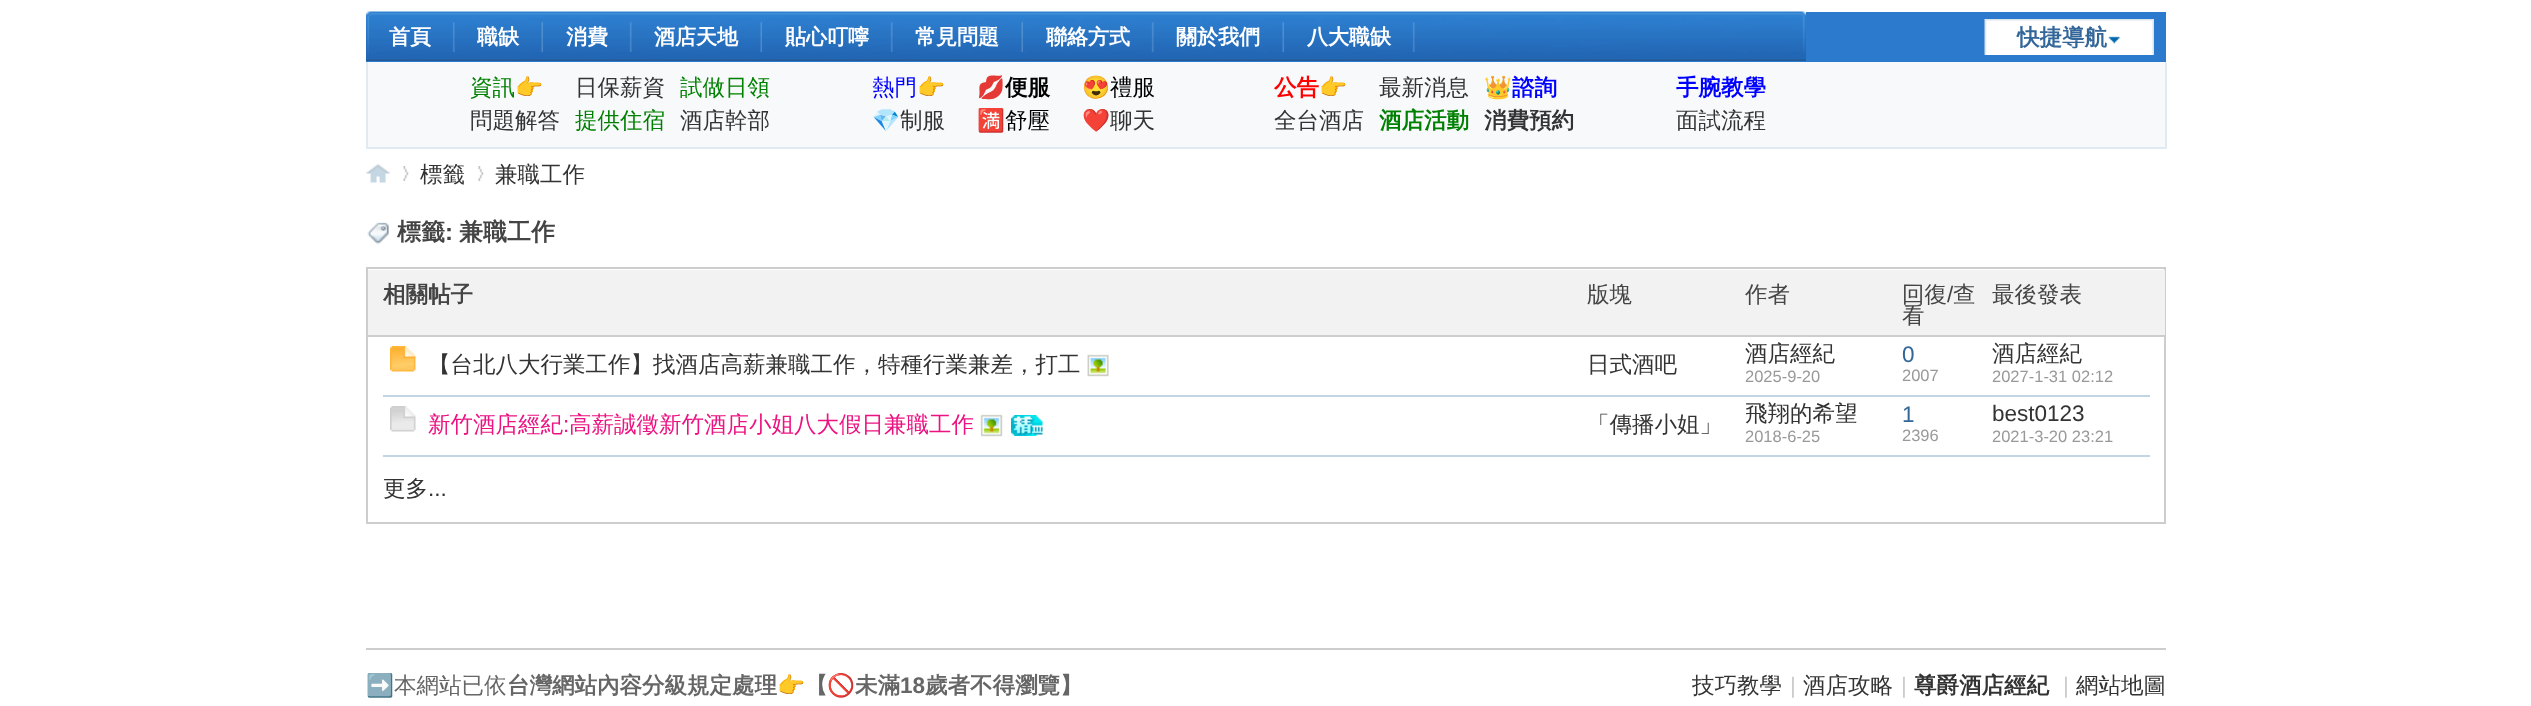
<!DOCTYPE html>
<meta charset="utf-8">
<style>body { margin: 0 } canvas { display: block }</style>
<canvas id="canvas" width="2531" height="706"></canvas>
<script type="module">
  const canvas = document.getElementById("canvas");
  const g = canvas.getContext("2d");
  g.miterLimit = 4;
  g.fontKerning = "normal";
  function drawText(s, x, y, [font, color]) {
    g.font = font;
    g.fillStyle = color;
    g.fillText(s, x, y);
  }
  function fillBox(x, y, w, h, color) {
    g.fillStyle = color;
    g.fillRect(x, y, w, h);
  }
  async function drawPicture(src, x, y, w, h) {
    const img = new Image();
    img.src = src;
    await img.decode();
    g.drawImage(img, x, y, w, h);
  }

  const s1 = ["bold 21px WenQuanYi Zen Hei", "#FFFFFF"];
  const s2 = ["bold 22.5px WenQuanYi Zen Hei", "#336699"];
  const s3 = ["500 22.5px WenQuanYi Zen Hei", "#008000"];
  const s4 = ["22.5px Noto Color Emoji", "#008000"];
  const s5 = ["500 22.5px WenQuanYi Zen Hei", "#333333"];
  const s6 = ["500 22.5px WenQuanYi Zen Hei", "#0000FF"];
  const s7 = ["22.5px Noto Color Emoji", "#0000FF"];
  const s8 = ["bold 22.5px Noto Color Emoji", "#000000"];
  const s9 = ["bold 22.5px WenQuanYi Zen Hei", "#000000"];
  const s10 = ["22.5px Noto Color Emoji", "#000000"];
  const s11 = ["500 22.5px WenQuanYi Zen Hei", "#000000"];
  const s12 = ["22.5px Noto Color Emoji", "#333333"];
  const s13 = ["bold 22.5px WenQuanYi Zen Hei", "#FF0000"];
  const s14 = ["bold 22.5px Noto Color Emoji", "#FF0000"];
  const s15 = ["bold 22.5px Noto Color Emoji", "#0000FF"];
  const s16 = ["bold 22.5px WenQuanYi Zen Hei", "#0000FF"];
  const s17 = ["bold 22.5px WenQuanYi Zen Hei", "#008000"];
  const s18 = ["bold 22.5px WenQuanYi Zen Hei", "#333333"];
  const s19 = ["bold 24px WenQuanYi Zen Hei", "#444444"];
  const s20 = ["bold 24px Liberation Sans", "#444444"];
  const s21 = ["bold 22.5px WenQuanYi Zen Hei", "#444444"];
  const s22 = ["500 22.5px WenQuanYi Zen Hei", "#444444"];
  const s23 = ["22.5px Liberation Sans", "#444444"];
  const s24 = ["16.5px Liberation Sans", "#999999"];
  const s25 = ["22.5px Liberation Sans", "#336699"];
  const s26 = ["22.5px Liberation Sans", "#333333"];
  const s27 = ["500 22.5px WenQuanYi Zen Hei", "#EC1282"];
  const s28 = ["22.5px Liberation Sans", "#EC1282"];
  const s29 = ["22.5px Noto Color Emoji", "#666666"];
  const s30 = ["500 22.5px WenQuanYi Zen Hei", "#666666"];
  const s31 = ["bold 22.5px WenQuanYi Zen Hei", "#666666"];
  const s32 = ["bold 22.5px Noto Color Emoji", "#666666"];
  const s33 = ["bold 22.5px Liberation Sans", "#666666"];
  const s34 = ["22.5px Liberation Sans", "#CCCCCC"];

  fillBox(0, 0, 2531, 706, "#FFFFFF");
  fillBox(366, 12, 1800, 50, "#2B7ACD");
  await drawPicture("pic1.png", 366, 11, 1440, 50);
  await drawPicture("pic2.png", 452, 22, 3, 31);
  drawText("首頁", 389, 44, s1);
  await drawPicture("pic3.png", 541, 21, 2, 32);
  drawText("職缺", 477, 44, s1);
  await drawPicture("pic4.png", 629, 22, 3, 31);
  drawText("消費", 566, 44, s1);
  await drawPicture("pic5.png", 760, 21, 2, 32);
  drawText("酒店天地", 654, 44, s1);
  await drawPicture("pic6.png", 890, 22, 3, 31);
  drawText("貼心叮嚀", 785, 44, s1);
  await drawPicture("pic7.png", 1021, 21, 2, 32);
  drawText("常見問題", 915, 44, s1);
  await drawPicture("pic8.png", 1151, 22, 3, 31);
  drawText("聯絡方式", 1046, 44, s1);
  await drawPicture("pic3.png", 1282, 21, 2, 32);
  drawText("關於我們", 1176, 44, s1);
  await drawPicture("pic9.png", 1412, 22, 3, 31);
  drawText("八大職缺", 1307, 44, s1);
  await drawPicture("pic10.png", 1984, 19, 170, 36);
  drawText("快捷導航", 2017, 45, s2);
  fillBox(368, 62, 1797, 85, "#F7F9FB");
  fillBox(2165, 62, 2, 87, "#E2EAF1");
  fillBox(366, 147, 1800, 2, "#E2EAF1");
  fillBox(366, 62, 2, 87, "#E2EAF1");
  drawText("資訊", 470, 95, s3);
  drawText("👉", 515, 95, s4);
  drawText("日保薪資", 575, 95, s5);
  drawText("試做日領", 680, 95, s3);
  drawText("問題解答", 470, 128, s5);
  drawText("提供住宿", 575, 128, s3);
  drawText("酒店幹部", 680, 128, s5);
  drawText("熱門", 872, 95, s6);
  drawText("👉", 917, 95, s7);
  g.save();
  g.beginPath();
  g.rect(977, 71, 105, 33);
  g.clip();
  drawText("💋", 977, 95, s8);
  g.restore();
  drawText("便服", 1005, 95, s9);
  g.save();
  g.beginPath();
  g.rect(1082, 71, 105, 33);
  g.clip();
  drawText("😍", 1082, 95, s10);
  g.restore();
  drawText("禮服", 1110, 95, s11);
  g.save();
  g.beginPath();
  g.rect(872, 104, 105, 33);
  g.clip();
  drawText("💎", 872, 128, s12);
  g.restore();
  drawText("制服", 900, 128, s5);
  g.save();
  g.beginPath();
  g.rect(977, 104, 105, 33);
  g.clip();
  drawText("🈵️", 977, 128, s10);
  g.restore();
  drawText("舒壓", 1005, 128, s11);
  g.save();
  g.beginPath();
  g.rect(1082, 104, 105, 33);
  g.clip();
  drawText("❤️", 1082, 128, s12);
  g.restore();
  drawText("聊天", 1110, 128, s5);
  drawText("公告", 1274, 95, s13);
  drawText("👉", 1319, 95, s14);
  drawText("最新消息", 1379, 95, s5);
  g.save();
  g.beginPath();
  g.rect(1484, 71, 105, 33);
  g.clip();
  drawText("👑", 1484, 95, s15);
  g.restore();
  drawText("諮詢", 1512, 95, s16);
  drawText("全台酒店", 1274, 128, s5);
  drawText("酒店活動", 1379, 128, s17);
  drawText("消費預約", 1484, 128, s18);
  drawText("手腕教學", 1676, 95, s16);
  drawText("面試流程", 1676, 128, s5);
  await drawPicture("pic11.png", 366, 164, 24, 19);
  await drawPicture("pic12.png", 403, 166, 6, 15);
  drawText("標籤", 420, 182, s5);
  await drawPicture("pic13.png", 478, 166, 6, 15);
  drawText("兼職工作", 495, 182, s5);
  await drawPicture("pic14.png", 367, 222, 22, 23);
  drawText("標籤", 397, 240, s19);
  drawText(":", 445, 240, s20);
  drawText("兼職工作", 459, 240, s19);
  g.strokeStyle = "#CDCDCD";
  g.lineWidth = 2;
  g.strokeRect(367, 268, 1798, 255);
  fillBox(368, 270, 1797, 65, "#F2F2F2");
  fillBox(368, 335, 1797, 2, "#CDCDCD");
  drawText("相關帖子", 383, 302, s21);
  drawText("版塊", 1587, 302, s22);
  drawText("作者", 1745, 302, s22);
  drawText("回復", 1902, 302, s22);
  drawText("/", 1947, 302, s23);
  drawText("查", 1953, 302, s22);
  drawText("看", 1902, 323, s22);
  drawText("最後發表", 1992, 302, s22);
  drawText("酒店經紀", 1745, 361, s5);
  drawText("2025-9-20", 1745, 382, s24);
  drawText("酒店經紀", 1992, 361, s5);
  drawText("2027-1-31 02:12", 1992, 382, s24);
  fillBox(383, 395, 1767, 2, "#C2D5E3");
  await drawPicture("pic15.png", 390, 346, 26, 26);
  drawText("【台北八大行業工作】找酒店高薪兼職工作，特種行業兼差，打工", 428, 372, s5);
  await drawPicture("pic16.png", 1087, 354, 22, 23);
  drawText("日式酒吧", 1587, 372, s5);
  drawText("0", 1902, 362, s25);
  drawText("2007", 1902, 381, s24);
  drawText("飛翔的希望", 1745, 421, s5);
  drawText("2018-6-25", 1745, 442, s24);
  drawText("best0123", 1992, 421, s26);
  drawText("2021-3-20 23:21", 1992, 442, s24);
  fillBox(383, 455, 1767, 2, "#C2D5E3");
  await drawPicture("pic17.png", 390, 406, 26, 26);
  drawText("新竹酒店經紀", 428, 432, s27);
  drawText(":", 563, 432, s28);
  drawText("高薪誠徵新竹酒店小姐八大假日兼職工作", 569, 432, s27);
  await drawPicture("pic18.png", 980, 414, 23, 23);
  await drawPicture("pic19.png", 1011, 415, 32, 21);
  drawText("「傳播小姐」", 1587, 432, s5);
  drawText("1", 1902, 422, s25);
  drawText("2396", 1902, 441, s24);
  drawText("更多", 383, 496, s5);
  drawText("...", 428, 496, s26);
  fillBox(366, 648, 1800, 2, "#CDCDCD");
  drawText("➡️", 366, 693, s29);
  drawText("本網站已依", 394, 693, s30);
  drawText("台灣網站內容分級規定處理", 507, 693, s31);
  drawText("👉", 777, 693, s32);
  drawText("【", 805, 693, s31);
  drawText("🚫", 827, 693, s32);
  drawText("未滿", 855, 693, s31);
  drawText("18", 900, 693, s33);
  drawText("歲者不得瀏覽】", 925, 693, s31);
  drawText("技巧教學", 1692, 693, s5);
  drawText("|", 1790, 693, s34);
  drawText("酒店攻略", 1803, 693, s5);
  drawText("|", 1901, 693, s34);
  drawText("尊爵酒店經紀", 1914, 693, s18);
  drawText("|", 2063, 693, s34);
  drawText("網站地圖", 2076, 693, s5);
</script>
